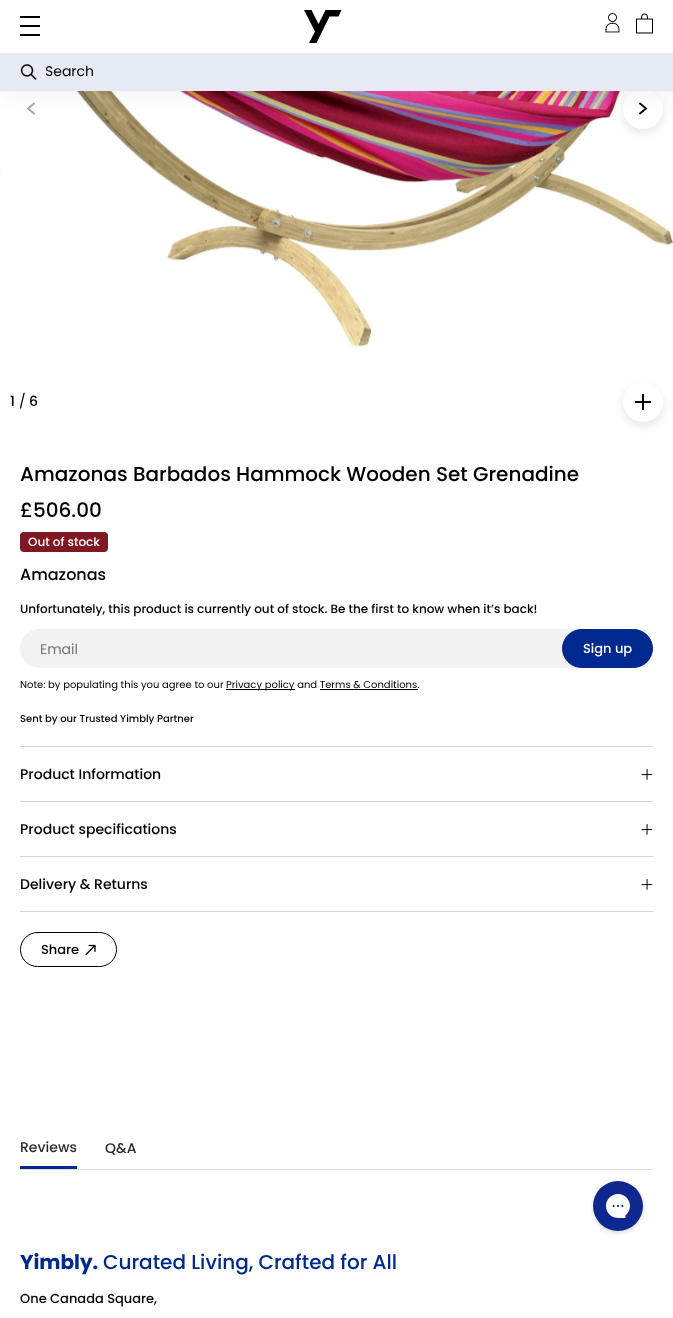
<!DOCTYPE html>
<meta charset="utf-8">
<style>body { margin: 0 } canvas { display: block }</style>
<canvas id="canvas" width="673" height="1318"></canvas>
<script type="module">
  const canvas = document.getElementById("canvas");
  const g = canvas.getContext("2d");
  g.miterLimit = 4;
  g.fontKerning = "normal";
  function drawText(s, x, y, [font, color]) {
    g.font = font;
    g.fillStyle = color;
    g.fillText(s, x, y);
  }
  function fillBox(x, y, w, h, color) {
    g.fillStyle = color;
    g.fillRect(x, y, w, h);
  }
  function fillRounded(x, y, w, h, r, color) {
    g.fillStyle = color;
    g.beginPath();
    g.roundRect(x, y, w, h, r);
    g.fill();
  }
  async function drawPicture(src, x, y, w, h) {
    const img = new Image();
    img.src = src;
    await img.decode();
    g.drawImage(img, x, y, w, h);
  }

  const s1 = ["14px Poppins", "#000000"];
  const s2 = ["500 14px Poppins", "#000000"];
  const s3 = ["500 20px Poppins", "#000000"];
  const s4 = ["500 12px Poppins", "#FFFFFF"];
  const s5 = ["500 16px Poppins", "#000000"];
  const s6 = ["500 12px Poppins", "#000000"];
  const s7 = ["14px Poppins", "#757575"];
  const s8 = ["500 13px Poppins", "#FFFFFF"];
  const s9 = ["10px Poppins", "#000000"];
  const s10 = ["500 10px Poppins", "#000000"];
  const s11 = ["500 13px Poppins", "#000000"];
  const s12 = ["500 14px Poppins", "#2C2C2C"];
  const s13 = ["bold 20px Poppins", "#00298F"];
  const s14 = ["500 20px Poppins", "#00298F"];

  fillBox(0, 0, 673, 1318, "#FFFFFF");
  await drawPicture("pic4.png", 0, 91, 673, 341);
  g.beginPath();
  g.moveTo(34, 103.5);
  g.lineTo(28, 108.5);
  g.lineTo(34, 113.5);
  g.strokeStyle = "#A6A6A6";
  g.lineWidth = 1.9;
  g.lineCap = "round";
  g.stroke();
  g.fillStyle = "rgba(0, 0, 0, 0.1)";
  g.filter = "blur(5px)";
  g.beginPath();
  g.roundRect(623, 93, 40, 40, 20);
  g.fill();
  g.filter = "none";
  g.fillStyle = "#FFFFFF";
  g.beginPath();
  g.arc(643, 109, 20, 0, Math.PI * 2);
  g.fill();
  g.beginPath();
  g.moveTo(640, 113.5);
  g.lineTo(646, 108.5);
  g.lineTo(640, 103.5);
  g.strokeStyle = "#000000";
  g.stroke();
  g.fillStyle = "rgba(0, 0, 0, 0.05)";
  g.filter = "blur(10px)";
  g.beginPath();
  g.rect(4, 4, 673, 91);
  g.fill();
  g.filter = "none";
  fillBox(0, 0, 673, 53, "#FFFFFF");
  fillBox(20, 16, 20, 2, "#000000");
  fillBox(20, 25, 20, 2, "#000000");
  fillBox(20, 34, 20, 2, "#000000");
  g.beginPath();
  g.moveTo(318.5, 24);
  g.lineTo(311.5, 10);
  g.lineTo(304, 10);
  g.lineTo(315, 31.5);
  g.lineTo(309, 43);
  g.lineTo(316.5, 43);
  g.lineTo(329.5, 16.5);
  g.lineTo(338.5, 16.5);
  g.lineTo(341.5, 10);
  g.lineTo(325.5, 10);
  g.closePath();
  g.fill();
  await drawPicture("pic1.png", 605, 13, 15, 20);
  await drawPicture("pic2.png", 636, 13, 17, 21);
  fillBox(0, 53, 673, 38, "#E6EAF4");
  await drawPicture("pic3.png", 20, 64, 17, 16);
  drawText("Search", 45, 76, s1);
  drawText("1", 10, 406, s2);
  drawText("/", 19, 406, s1);
  drawText("6", 29, 406, s2);
  g.fillStyle = "rgba(0, 0, 0, 0.1)";
  g.filter = "blur(5px)";
  g.beginPath();
  g.roundRect(623, 386, 40, 40, 20);
  g.fill();
  g.filter = "none";
  g.fillStyle = "#FFFFFF";
  g.beginPath();
  g.arc(643, 402, 20, 0, Math.PI * 2);
  g.fill();
  fillBox(635, 401, 16, 2, "#000000");
  fillBox(642, 394, 2, 16, "#000000");
  drawText("Amazonas Barbados Hammock Wooden Set Grenadine", 20, 481, s3);
  drawText("£506.00", 20, 517, s3);
  fillRounded(20, 532, 88, 20, 4, "#7F1823");
  drawText("Out of stock", 28, 546, s4);
  drawText("Amazonas", 20, 580, s5);
  drawText("Unfortunately, this product is currently out of stock. Be the first to know when it’s back!", 20, 613, s6);
  g.fillStyle = "#F2F2F2";
  g.beginPath();
  g.roundRect(20, 629, 557, 39, [19.5, 0, 0, 19.5]);
  g.fill();
  drawText("Email", 40, 654, s7);
  g.fillStyle = "#00298F";
  g.beginPath();
  g.roundRect(562.5, 629.5, 90, 38, 19);
  g.fill();
  g.strokeStyle = "#00298F";
  g.lineWidth = 1;
  g.stroke();
  drawText("Sign up", 583, 653, s8);
  drawText("Note: by populating this you agree to our", 20, 688, s9);
  fillBox(226, 689, 69, 1, "#000000");
  drawText("Privacy policy and Terms & Conditions.", 226, 688, s9);
  fillBox(320, 689, 98, 1, "#000000");
  drawText("Sent by our Trusted Yimbly Partner", 20, 722, s10);
  fillBox(20, 746, 633, 1, "#D3D3D3");
  drawText("Product Information", 20, 779, s2);
  await drawPicture("pic5.png", 641, 769, 12, 11);
  fillBox(20, 801, 633, 1, "#D3D3D3");
  drawText("Product specifications", 20, 834, s2);
  await drawPicture("pic5.png", 641, 824, 12, 11);
  fillBox(20, 856, 633, 1, "#D3D3D3");
  fillBox(20, 911, 633, 1, "#D3D3D3");
  drawText("Delivery & Returns", 20, 889, s2);
  await drawPicture("pic5.png", 641, 879, 12, 11);
  g.beginPath();
  g.roundRect(20.5, 932.5, 96, 34, 17);
  g.strokeStyle = "#000000";
  g.stroke();
  drawText("Share", 41, 954, s11);
  await drawPicture("pic6.png", 85, 944, 11, 12);
  fillBox(20, 1169, 633, 1, "#E0E0E0");
  fillBox(20, 1166, 57, 3, "#00298F");
  drawText("Reviews", 20, 1152, s12);
  drawText("Q&A", 105, 1153, s12);
  await drawPicture("pic7.png", 591, 1181, 54, 54);
  drawText("Yimbly.", 20, 1269, s13);
  drawText("Curated Living, Crafted for All", 103, 1269, s14);
  drawText("One Canada Square,", 20, 1303, s11);
</script>
